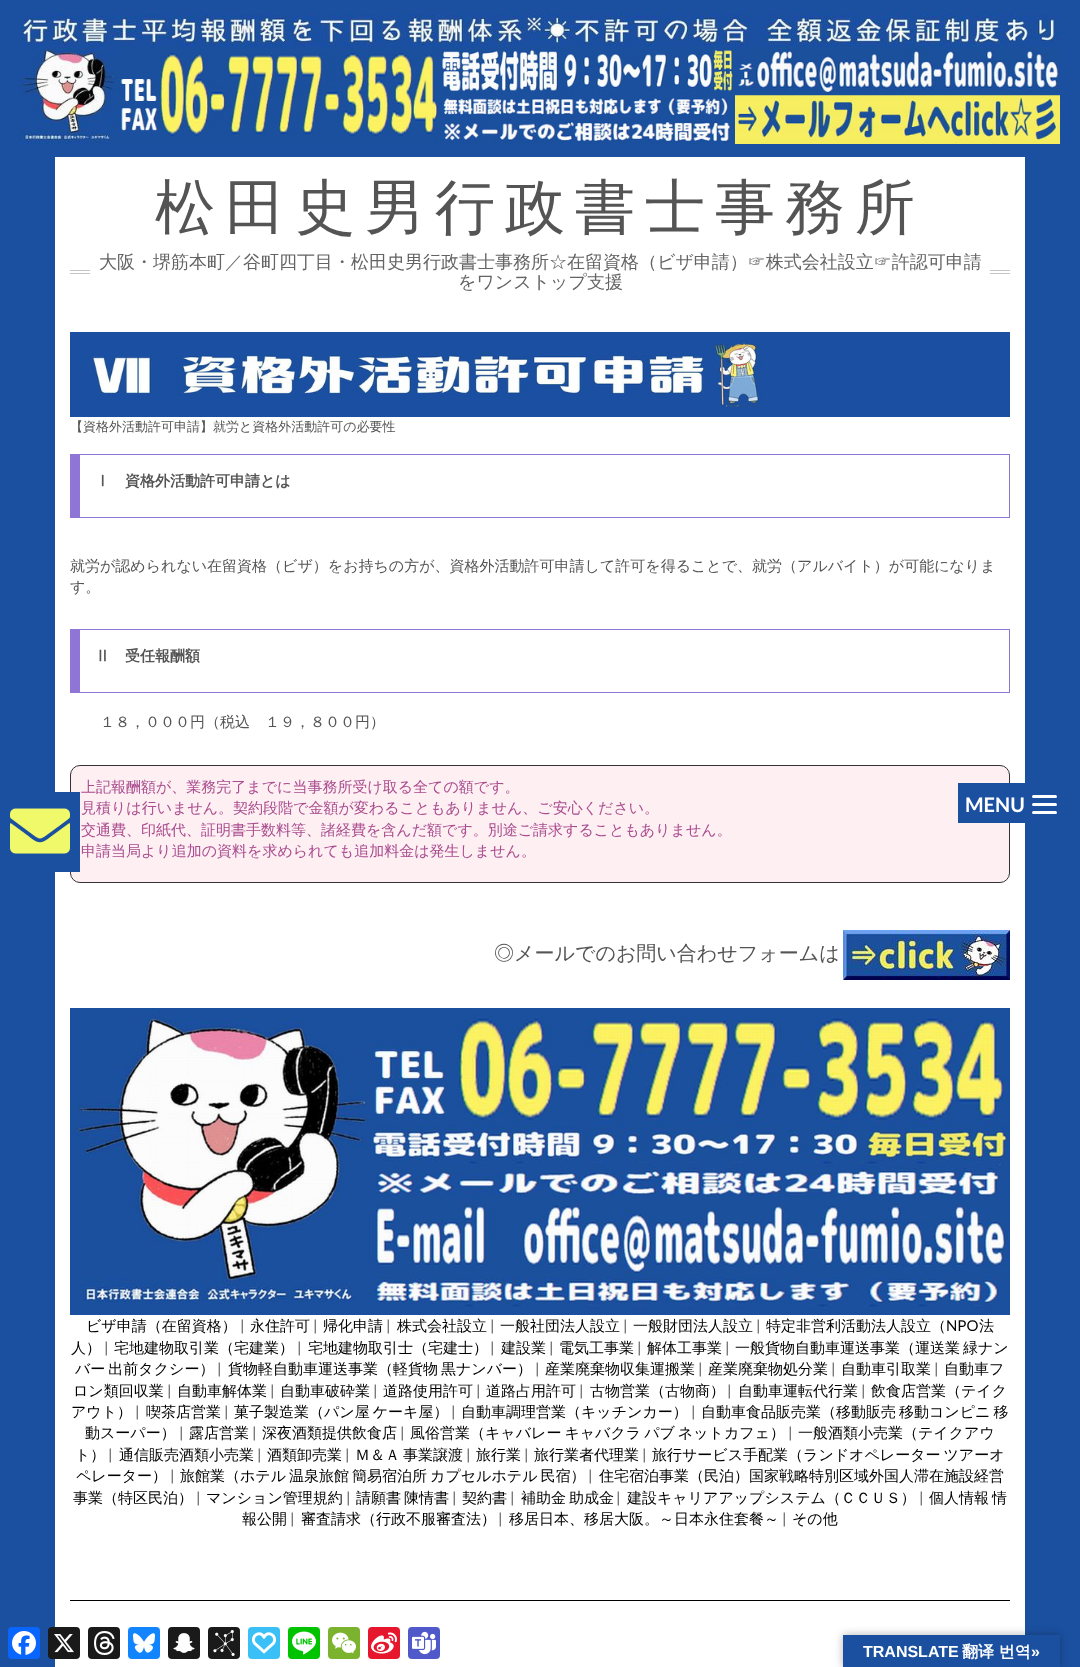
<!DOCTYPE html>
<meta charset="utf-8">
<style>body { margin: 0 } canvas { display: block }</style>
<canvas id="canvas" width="1080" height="1667"></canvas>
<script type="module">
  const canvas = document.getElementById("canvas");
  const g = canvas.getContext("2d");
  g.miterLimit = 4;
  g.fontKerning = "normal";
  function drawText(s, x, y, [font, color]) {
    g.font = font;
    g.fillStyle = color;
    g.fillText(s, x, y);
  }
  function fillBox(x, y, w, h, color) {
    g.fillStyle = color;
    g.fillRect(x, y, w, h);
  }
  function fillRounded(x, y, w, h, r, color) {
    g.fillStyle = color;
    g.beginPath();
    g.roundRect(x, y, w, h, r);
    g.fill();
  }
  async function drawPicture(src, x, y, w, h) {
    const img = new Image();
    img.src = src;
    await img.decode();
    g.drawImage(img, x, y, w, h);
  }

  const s1 = ["500 60px WenQuanYi Zen Hei", "#545454"];
  const s2 = ["500 18px WenQuanYi Zen Hei", "#646464"];
  const s3 = ["500 13px WenQuanYi Zen Hei", "#545454"];
  const s4 = ["bold 15px WenQuanYi Zen Hei", "#545454"];
  const s5 = ["500 15px WenQuanYi Zen Hei", "#545454"];
  const s6 = ["500 15px WenQuanYi Zen Hei", "#AA4C8F"];
  const s7 = ["500 20px WenQuanYi Zen Hei", "#545454"];
  const s8 = ["500 15px WenQuanYi Zen Hei", "#000000"];
  const s9 = ["15px Lato", "#545454"];
  const s10 = ["15px Lato", "#000000"];
  const s11 = ["bold 20px Lato", "#FFFFFF"];
  const s12 = ["bold 16px Liberation Sans", "#FFFFFF"];
  const s13 = ["bold 16px WenQuanYi Zen Hei", "#FFFFFF"];

  fillBox(0, 0, 1080, 1667, "#1B50A0");
  await drawPicture("pic1.png", 20, 14, 1040, 130);
  fillBox(55, 157, 970, 1510, "#FFFFFF");
  g.fillStyle = "#FDEFF2";
  g.beginPath();
  g.roundRect(70.5, 765.5, 939, 117, 9.5);
  g.fill();
  g.strokeStyle = "#333333";
  g.stroke();
  fillBox(55, 792, 25, 80, "#1B50A0");
  await drawPicture("pic2.png", 10, 808, 60, 46);
  g.letterSpacing = "10px";
  drawText("松田史男行政書士事務所", 155, 228, s1);
  fillBox(70, 270, 20, 1, "#C4C4C4");
  fillBox(70, 273, 20, 1, "#C4C4C4");
  g.letterSpacing = "0px";
  drawText("大阪・堺筋本町／谷町四丁目・松田史男行政書士事務所☆在留資格（ビザ申請）☞株式会社設立☞許認可申請", 99, 268, s2);
  fillBox(990, 270, 20, 1, "#C4C4C4");
  fillBox(990, 273, 20, 1, "#C4C4C4");
  drawText("をワンストップ支援", 458, 288, s2);
  await drawPicture("pic3.png", 70, 332, 940, 85);
  drawText("【資格外活動許可申請】就労と資格外活動許可の必要性", 70, 431, s3);
  fillBox(80, 454, 930, 1, "#8F76D6");
  fillBox(1009, 454, 1, 64, "#8F76D6");
  fillBox(80, 517, 930, 1, "#8F76D6");
  fillBox(70, 454, 10, 64, "#8F76D6");
  drawText("Ⅰ　資格外活動許可申請とは", 95, 486, s4);
  drawText("就労が認められない在留資格（ビザ）をお持ちの方が、資格外活動許可申請して許可を得ることで、就労（アルバイト）が可能になりま", 70, 571, s5);
  drawText("す。", 70, 592, s5);
  fillBox(80, 629, 930, 1, "#8F76D6");
  fillBox(1009, 629, 1, 64, "#8F76D6");
  fillBox(80, 692, 930, 1, "#8F76D6");
  fillBox(70, 629, 10, 64, "#8F76D6");
  drawText("Ⅱ　受任報酬額", 95, 661, s4);
  drawText("１８，０００円（税込　１９，８００円）", 100, 727, s5);
  drawText("上記報酬額が、業務完了までに当事務所受け取る全ての額です。", 81, 792, s6);
  drawText("見積りは行いません。契約段階で金額が変わることもありません、ご安心ください。", 81, 813, s6);
  drawText("交通費、印紙代、証明書手数料等、諸経費を含んだ額です。別途ご請求することもありません。", 81, 835, s6);
  drawText("申請当局より追加の資料を求められても追加料金は発生しません。", 81, 856, s6);
  drawText("◎メールでのお問い合わせフォームは", 494, 960, s7);
  await drawPicture("pic4.png", 843, 930, 167, 50);
  await drawPicture("pic5.png", 70, 1008, 940, 307);
  drawText("ビザ申請（在留資格）", 86, 1331, s8);
  drawText("|", 240, 1331, s9);
  drawText("永住許可", 250, 1331, s8);
  drawText("|", 313, 1331, s9);
  drawText("帰化申請", 323, 1331, s8);
  drawText("|", 386, 1331, s9);
  drawText("株式会社設立", 397, 1331, s8);
  drawText("|", 490, 1331, s9);
  drawText("一般社団法人設立", 500, 1331, s8);
  drawText("|", 623, 1331, s9);
  drawText("一般財団法人設立", 633, 1331, s8);
  drawText("|", 756, 1331, s9);
  drawText("特定非営利活動法人設立（", 766, 1331, s8);
  drawText("NPO", 946, 1331, s10);
  drawText("法", 979, 1331, s8);
  drawText("人）", 71, 1353, s8);
  drawText("|", 104, 1353, s9);
  drawText("宅地建物取引業（宅建業）", 114, 1353, s8);
  drawText("|", 297, 1353, s9);
  drawText("宅地建物取引士（宅建士）", 308, 1353, s8);
  drawText("|", 490, 1353, s9);
  drawText("建設業", 501, 1353, s8);
  drawText("|", 549, 1353, s9);
  drawText("電気工事業", 559, 1353, s8);
  drawText("|", 637, 1353, s9);
  drawText("解体工事業", 647, 1353, s8);
  drawText("|", 725, 1353, s9);
  g.wordSpacing = "-1.5px";
  drawText("一般貨物自動車運送事業（運送業 緑ナン", 735, 1353, s8);
  drawText("バー 出前タクシー）", 75, 1374, s8);
  g.wordSpacing = "0px";
  drawText("|", 217, 1374, s9);
  g.wordSpacing = "-1.5px";
  drawText("貨物軽自動車運送事業（軽貨物 黒ナンバー）", 228, 1374, s8);
  g.wordSpacing = "0px";
  drawText("|", 535, 1374, s9);
  drawText("産業廃棄物収集運搬業", 545, 1374, s8);
  drawText("|", 698, 1374, s9);
  drawText("産業廃棄物処分業", 708, 1374, s8);
  drawText("|", 831, 1374, s9);
  drawText("自動車引取業", 841, 1374, s8);
  drawText("|", 934, 1374, s9);
  drawText("自動車フ", 944, 1374, s8);
  drawText("ロン類回収業", 73, 1396, s8);
  drawText("|", 167, 1396, s9);
  drawText("自動車解体業", 177, 1396, s8);
  drawText("|", 270, 1396, s9);
  drawText("自動車破砕業", 280, 1396, s8);
  drawText("|", 373, 1396, s9);
  drawText("道路使用許可", 383, 1396, s8);
  drawText("|", 476, 1396, s9);
  drawText("道路占用許可", 486, 1396, s8);
  drawText("|", 579, 1396, s9);
  drawText("古物営業（古物商）", 590, 1396, s8);
  drawText("|", 727, 1396, s9);
  drawText("自動車運転代行業", 738, 1396, s8);
  drawText("|", 861, 1396, s9);
  drawText("飲食店営業（テイク", 871, 1396, s8);
  drawText("アウト）", 71, 1417, s8);
  drawText("|", 135, 1417, s9);
  drawText("喫茶店営業", 146, 1417, s8);
  drawText("|", 224, 1417, s9);
  g.wordSpacing = "-1.5px";
  drawText("菓子製造業（パン屋 ケーキ屋）", 234, 1417, s8);
  g.wordSpacing = "0px";
  drawText("|", 451, 1417, s9);
  drawText("自動車調理営業（キッチンカー）", 461, 1417, s8);
  drawText("|", 691, 1417, s9);
  g.wordSpacing = "-1.5px";
  drawText("自動車食品販売業（移動販売 移動コンピニ 移", 701, 1417, s8);
  g.wordSpacing = "0px";
  drawText("動スーパー）", 85, 1438, s8);
  drawText("|", 179, 1438, s9);
  drawText("露店営業", 189, 1438, s8);
  drawText("|", 252, 1438, s9);
  drawText("深夜酒類提供飲食店", 262, 1438, s8);
  drawText("|", 400, 1438, s9);
  g.wordSpacing = "-1.5px";
  drawText("風俗営業（キャバレー キャバクラ パブ ネットカフェ）", 410, 1438, s8);
  g.wordSpacing = "0px";
  drawText("|", 788, 1438, s9);
  drawText("一般酒類小売業（テイクアウ", 798, 1438, s8);
  drawText("ト）", 75, 1460, s8);
  drawText("|", 108, 1460, s9);
  drawText("通信販売酒類小売業", 119, 1460, s8);
  drawText("|", 257, 1460, s9);
  drawText("酒類卸売業", 267, 1460, s8);
  drawText("|", 345, 1460, s9);
  g.wordSpacing = "-1.5px";
  drawText("Ｍ＆Ａ 事業譲渡", 355, 1460, s8);
  g.wordSpacing = "0px";
  drawText("|", 466, 1460, s9);
  drawText("旅行業", 476, 1460, s8);
  drawText("|", 524, 1460, s9);
  drawText("旅行業者代理業", 534, 1460, s8);
  drawText("|", 642, 1460, s9);
  g.wordSpacing = "-1.5px";
  drawText("旅行サービス手配業（ランドオペレーター ツアーオ", 652, 1460, s8);
  g.wordSpacing = "0px";
  drawText("ペレーター）", 76, 1481, s8);
  drawText("|", 170, 1481, s9);
  g.wordSpacing = "-1.5px";
  drawText("旅館業（ホテル 温泉旅館 簡易宿泊所 カプセルホテル 民宿）", 180, 1481, s8);
  g.wordSpacing = "0px";
  drawText("|", 588, 1481, s9);
  drawText("住宅宿泊事業（民泊）国家戦略特別区域外国人滞在施設経営", 599, 1481, s8);
  drawText("事業（特区民泊）", 73, 1503, s8);
  drawText("|", 196, 1503, s9);
  drawText("マンション管理規約", 206, 1503, s8);
  drawText("|", 346, 1503, s9);
  g.wordSpacing = "-1.5px";
  drawText("請願書 陳情書", 356, 1503, s8);
  g.wordSpacing = "0px";
  drawText("|", 452, 1503, s9);
  drawText("契約書", 462, 1503, s8);
  drawText("|", 510, 1503, s9);
  g.wordSpacing = "-1.5px";
  drawText("補助金 助成金", 521, 1503, s8);
  g.wordSpacing = "0px";
  drawText("|", 616, 1503, s9);
  drawText("建設キャリアアップシステム（ＣＣＵＳ）", 627, 1503, s8);
  drawText("|", 919, 1503, s9);
  g.wordSpacing = "-1.5px";
  drawText("個人情報 情", 929, 1503, s8);
  g.wordSpacing = "0px";
  drawText("報公開", 242, 1524, s8);
  drawText("|", 290, 1524, s9);
  drawText("審査請求（行政不服審査法）", 301, 1524, s8);
  drawText("|", 498, 1524, s9);
  drawText("移居日本、移居大阪。～日本永住套餐～", 509, 1524, s8);
  drawText("|", 782, 1524, s9);
  drawText("その他", 792, 1524, s8);
  fillBox(70, 1600, 940, 1, "#000000");
  fillBox(958, 783, 67, 40, "#1B50A0");
  drawText("MENU", 965, 812, s11);
  fillRounded(1032, 803, 25, 3, 1.5, "#FFFFFF");
  fillRounded(1032, 795, 25, 3, 1.5, "#FFFFFF");
  fillRounded(1032, 811, 25, 3, 1.5, "#FFFFFF");
  fillRounded(8, 1627, 32, 32, 4, "#0866FF");
  await drawPicture("pic6.png", 12, 1631, 24, 24);
  fillRounded(48, 1627, 32, 32, 4, "#1A1A1A");
  await drawPicture("pic7.png", 54, 1634, 20, 19);
  fillRounded(88, 1627, 32, 32, 4, "#1A1A1A");
  await drawPicture("pic8.png", 94, 1631, 21, 24);
  fillRounded(128, 1627, 32, 32, 4, "#1285FE");
  await drawPicture("pic9.png", 133, 1633, 22, 20);
  fillRounded(168, 1627, 32, 32, 4, "#1A1A1A");
  await drawPicture("pic10.png", 173, 1633, 22, 20);
  fillRounded(208, 1627, 32, 32, 4, "#1A1A1A");
  await drawPicture("pic11.png", 213, 1630, 22, 26);
  fillRounded(248, 1627, 32, 32, 4, "#3AC0F6");
  await drawPicture("pic12.png", 252, 1632, 24, 22);
  fillRounded(288, 1627, 32, 32, 4, "#00C300");
  await drawPicture("pic13.png", 292, 1631, 24, 24);
  fillRounded(328, 1627, 32, 32, 4, "#7BB32E");
  await drawPicture("pic14.png", 332, 1632, 24, 22);
  fillRounded(368, 1627, 32, 32, 4, "#E6162D");
  await drawPicture("pic15.png", 371, 1632, 26, 22);
  fillRounded(408, 1627, 32, 32, 4, "#5059C9");
  await drawPicture("pic16.png", 412, 1631, 24, 24);
  g.fillStyle = "rgba(0, 0, 0, 0.3)";
  g.filter = "blur(4.5px)";
  g.beginPath();
  g.rect(843, 1635, 217, 32);
  g.fill();
  g.filter = "none";
  fillBox(843, 1635, 217, 32, "#1B50A0");
  drawText("TRANSLATE", 863, 1657, s12);
  drawText("翻译 번역", 962, 1657, s13);
  drawText("»", 1031, 1657, s12);
</script>
